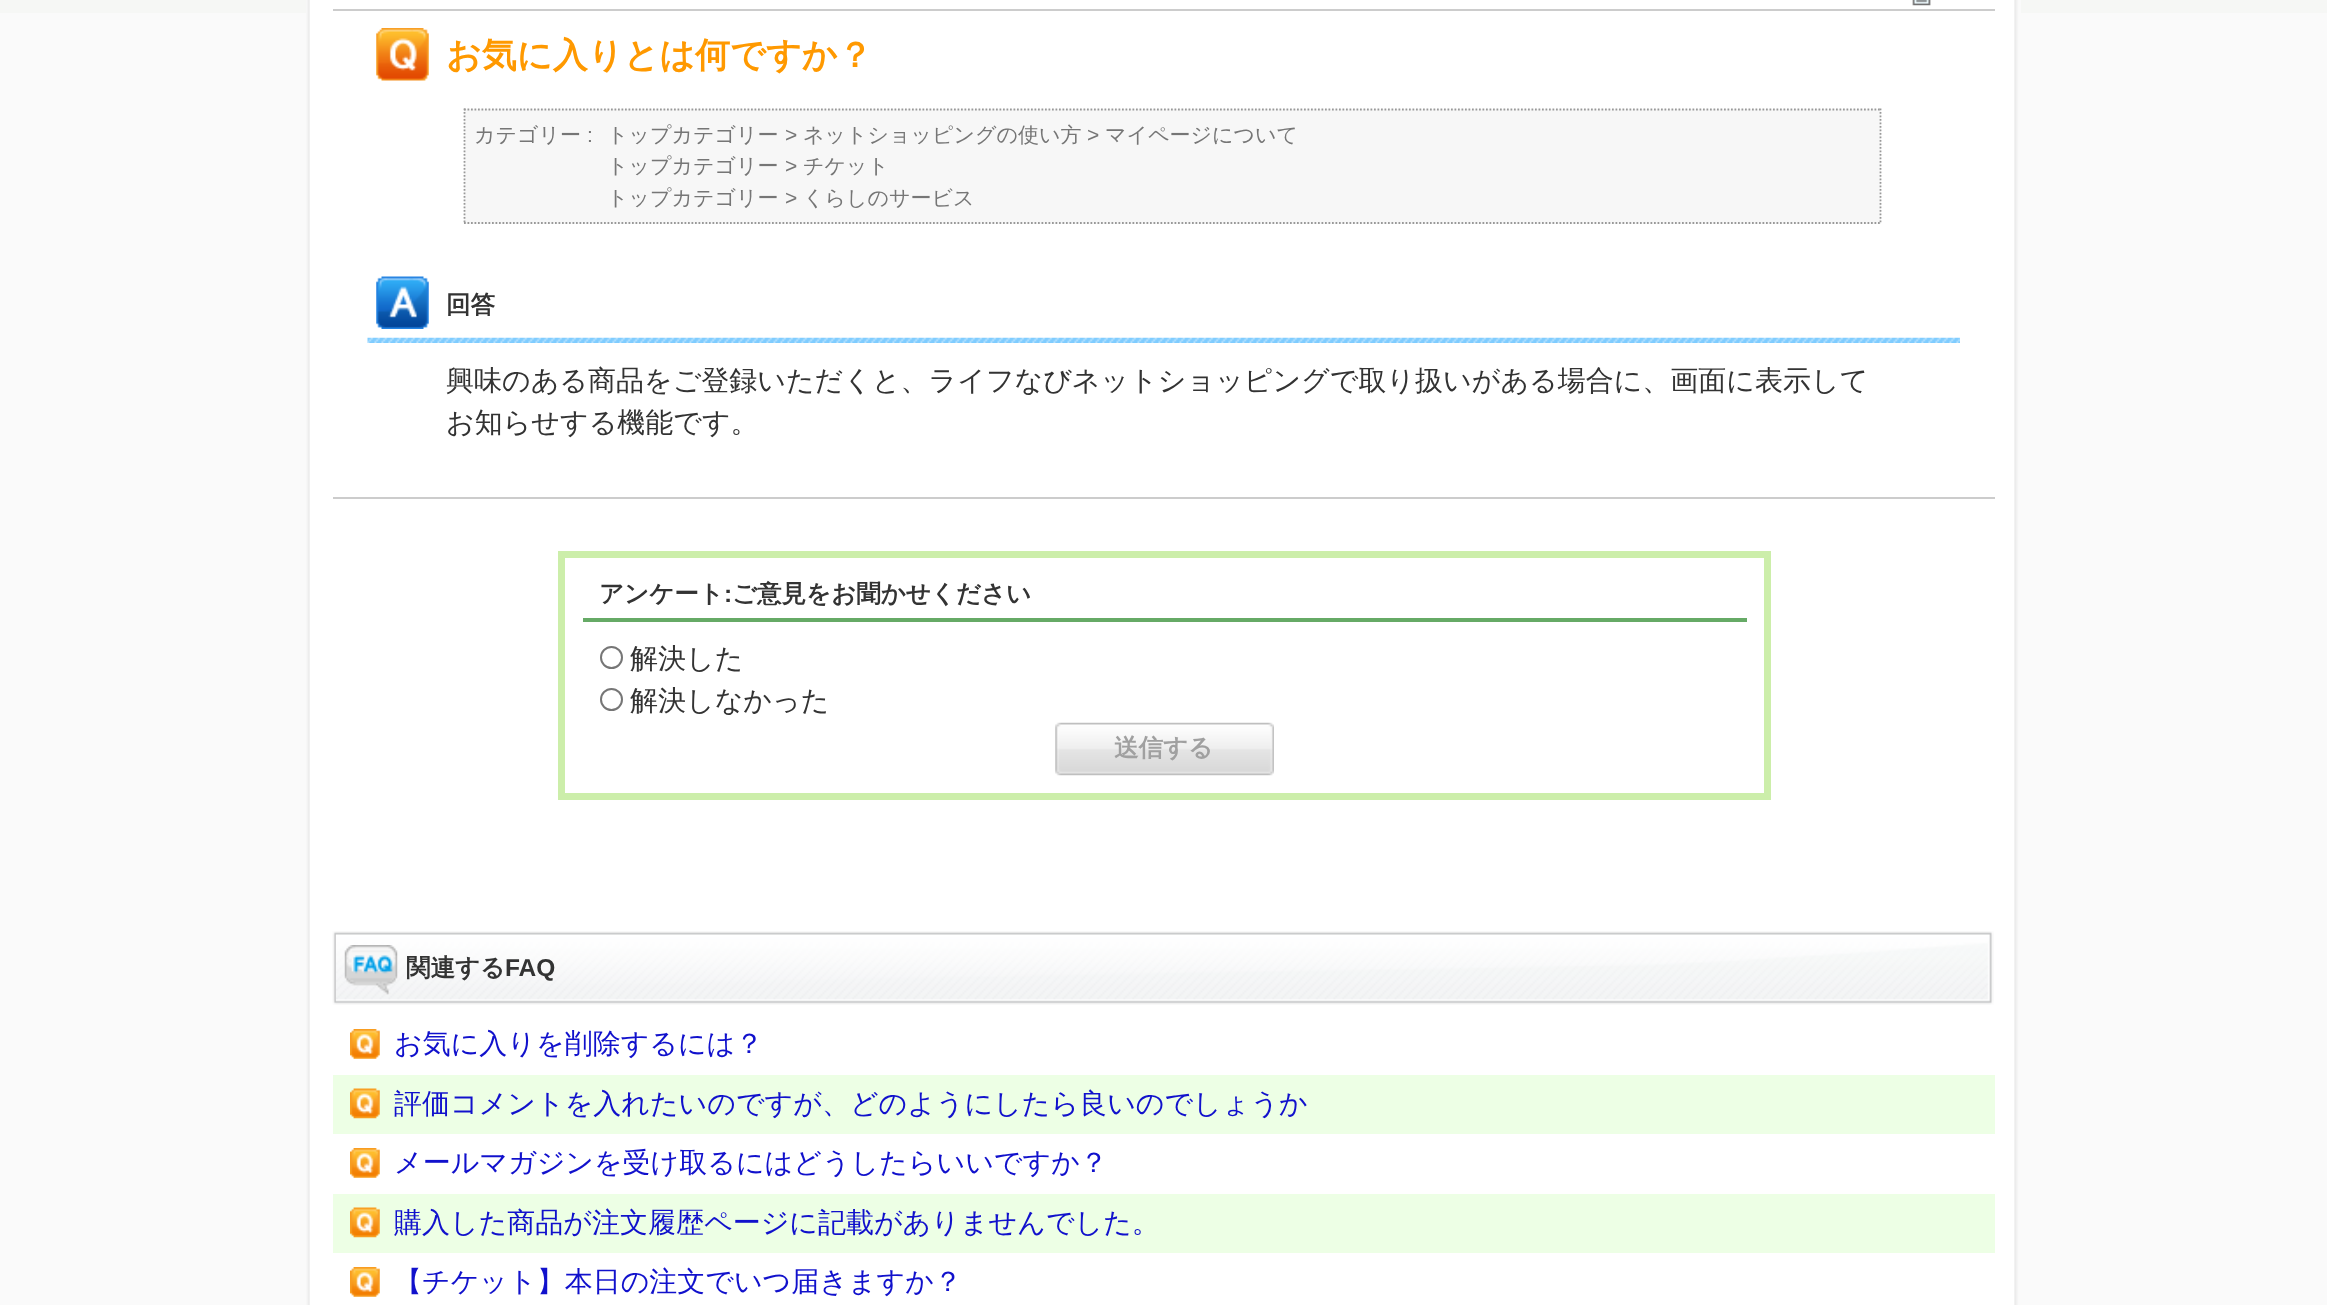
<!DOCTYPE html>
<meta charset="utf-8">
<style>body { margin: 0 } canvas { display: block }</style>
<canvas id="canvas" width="2327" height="1305"></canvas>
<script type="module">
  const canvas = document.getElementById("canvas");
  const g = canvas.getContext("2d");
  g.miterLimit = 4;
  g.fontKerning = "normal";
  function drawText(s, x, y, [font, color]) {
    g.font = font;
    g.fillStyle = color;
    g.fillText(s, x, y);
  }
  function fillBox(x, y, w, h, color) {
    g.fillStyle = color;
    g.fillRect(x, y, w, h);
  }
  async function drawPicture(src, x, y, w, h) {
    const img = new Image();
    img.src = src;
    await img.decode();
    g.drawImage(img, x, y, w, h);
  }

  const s1 = ["bold 35px WenQuanYi Zen Hei", "#FF9900"];
  const s2 = ["500 21px WenQuanYi Zen Hei", "#767676"];
  const s3 = ["21px Liberation Sans", "#767676"];
  const s4 = ["bold 24.5px WenQuanYi Zen Hei", "#333333"];
  const s5 = ["500 28px WenQuanYi Zen Hei", "#333333"];
  const s6 = ["bold 24.5px Liberation Sans", "#333333"];
  const s7 = ["bold 24.5px WenQuanYi Zen Hei", "#A0A0A0"];
  const s8 = ["500 28px WenQuanYi Zen Hei", "#1111CC"];

  fillBox(0, 0, 2327, 1305, "#FAFAFA");
  fillBox(0, 0, 2327, 13, "#F6F7F5");
  fillBox(306, 0, 1708, 1305, "#FFFFFF");
  await drawPicture("pic1.png", 2014, 0, 7, 1305);
  await drawPicture("pic2.png", 306, 0, 4, 1305);
  fillBox(333, 9, 1662, 2, "#CCCCCC");
  await drawPicture("pic3.png", 1912, 0, 19, 6);
  await drawPicture("pic4.png", 376, 28, 53, 53);
  drawText("お気に入りとは何ですか？", 446, 67, s1);
  fillBox(464, 109, 1417, 115, "#F7F7F7");
  g.beginPath();
  g.moveTo(464, 109.5);
  g.lineTo(1881, 109.5);
  g.strokeStyle = "#999999";
  g.lineWidth = 1.8;
  g.setLineDash([1.75, 1.75]);
  g.stroke();
  g.beginPath();
  g.moveTo(1880.5, 108.5);
  g.lineTo(1880.5, 224);
  g.stroke();
  g.beginPath();
  g.moveTo(464, 223);
  g.lineTo(1881, 223);
  g.stroke();
  g.beginPath();
  g.moveTo(464.5, 108.5);
  g.lineTo(464.5, 224);
  g.stroke();
  drawText("カテゴリー", 474, 142, s2);
  drawText(":", 587, 142, s3);
  drawText("トップカテゴリー", 607, 142, s2);
  drawText(">", 785, 142, s3);
  drawText("ネットショッピングの使い方", 803, 142, s2);
  drawText(">", 1087, 142, s3);
  drawText("マイページについて", 1105, 142, s2);
  drawText("トップカテゴリー", 607, 173, s2);
  drawText(">", 785, 173, s3);
  drawText("チケット", 803, 173, s2);
  drawText("トップカテゴリー", 607, 205, s2);
  drawText(">", 785, 205, s3);
  drawText("くらしのサービス", 803, 205, s2);
  await drawPicture("pic5.png", 367, 337, 1593, 6);
  await drawPicture("pic6.png", 376, 276, 53, 53);
  drawText("回答", 446, 313, s4);
  fillBox(333, 497, 1662, 2, "#CCCCCC");
  drawText("興味のある商品をご登録いただくと、ライフなびネットショッピングで取り扱いがある場合に、画面に表示して", 446, 390, s5);
  drawText("お知らせする機能です。", 446, 432, s5);
  g.strokeStyle = "#CCEEAA";
  g.lineWidth = 7;
  g.setLineDash([]);
  g.strokeRect(561.5, 554.5, 1206, 242);
  fillBox(583, 618, 1164, 4, "#66AA66");
  drawText("アンケート", 599, 602, s4);
  drawText(":", 724, 602, s6);
  drawText("ご意見をお聞かせください", 732, 602, s4);
  g.beginPath();
  g.arc(611.5, 657.5, 10.5, 0, Math.PI * 2);
  g.strokeStyle = "#767676";
  g.lineWidth = 2;
  g.stroke();
  drawText("解決した", 630, 668, s5);
  g.beginPath();
  g.arc(611.5, 699.5, 10.5, 0, Math.PI * 2);
  g.stroke();
  drawText("解決しなかった", 630, 710, s5);
  await drawPicture("pic7.png", 1055, 722, 219, 54);
  drawText("送信する", 1114, 756, s7);
  await drawPicture("pic8.png", 332, 931, 4, 74);
  await drawPicture("pic9.png", 336, 931, 1658, 74);
  await drawPicture("pic10.png", 344, 945, 54, 50);
  drawText("関連する", 406, 976, s4);
  drawText("FAQ", 505, 976, s6);
  await drawPicture("pic11.png", 350, 1029, 30, 30);
  drawText("お気に入りを削除するには？", 394, 1053, s8);
  fillBox(333, 1075, 1662, 59, "#EDFFE5");
  await drawPicture("pic12.png", 350, 1088, 30, 31);
  drawText("評価コメントを入れたいのですが、どのようにしたら良いのでしょうか", 394, 1113, s8);
  await drawPicture("pic11.png", 350, 1148, 30, 30);
  drawText("メールマガジンを受け取るにはどうしたらいいですか？", 394, 1172, s8);
  fillBox(333, 1194, 1662, 59, "#EDFFE5");
  await drawPicture("pic12.png", 350, 1207, 30, 31);
  drawText("購入した商品が注文履歴ページに記載がありませんでした。", 394, 1232, s8);
  await drawPicture("pic11.png", 350, 1267, 30, 30);
  drawText("【チケット】本日の注文でいつ届きますか？", 394, 1291, s8);
</script>
